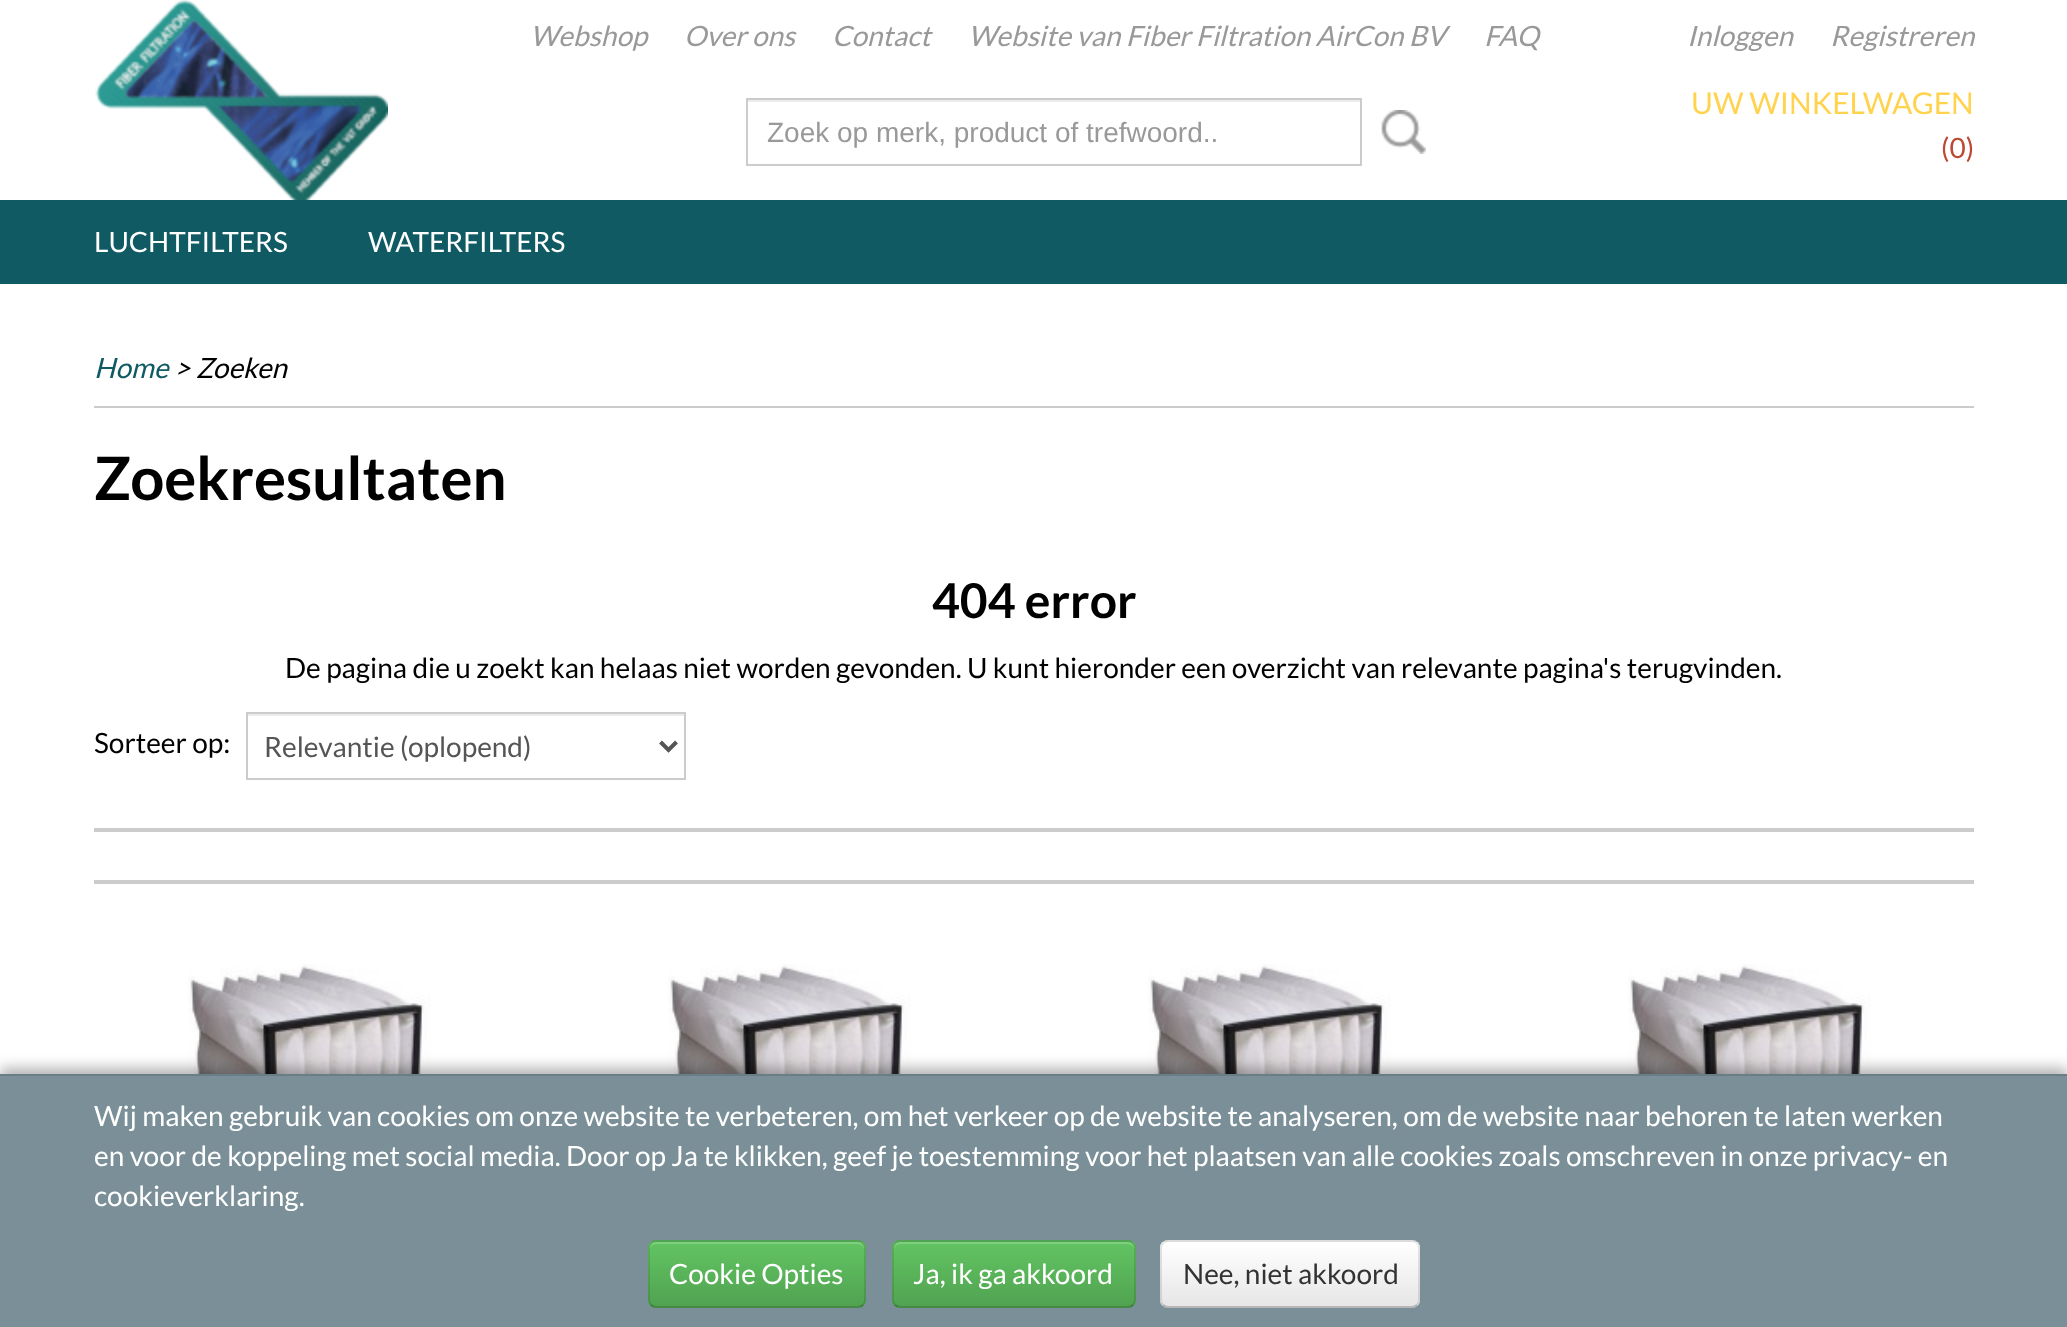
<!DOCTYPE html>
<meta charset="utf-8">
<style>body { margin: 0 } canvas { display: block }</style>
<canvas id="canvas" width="2067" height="1327"></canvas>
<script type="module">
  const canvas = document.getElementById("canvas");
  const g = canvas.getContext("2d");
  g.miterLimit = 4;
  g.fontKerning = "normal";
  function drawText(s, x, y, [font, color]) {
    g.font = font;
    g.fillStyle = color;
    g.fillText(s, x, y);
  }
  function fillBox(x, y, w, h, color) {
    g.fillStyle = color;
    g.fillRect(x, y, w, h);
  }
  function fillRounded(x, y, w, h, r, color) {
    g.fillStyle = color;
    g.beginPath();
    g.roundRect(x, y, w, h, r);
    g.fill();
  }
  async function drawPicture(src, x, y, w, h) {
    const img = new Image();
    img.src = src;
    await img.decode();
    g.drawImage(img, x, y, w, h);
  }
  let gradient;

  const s1 = ["italic 28px Lato", "#999999"];
  const s2 = ["30px Lato", "#FFD34E"];
  const s3 = ["28px Lato", "#BD4932"];
  const s4 = ["28px Liberation Sans", "#999999"];
  const s5 = ["28px Lato", "#FFFFFF"];
  const s6 = ["italic 28px Lato", "#105B63"];
  const s7 = ["italic 28px Lato", "#000000"];
  const s8 = ["bold 60px Lato", "#000000"];
  const s9 = ["bold 48px Lato", "#000000"];
  const s10 = ["28px Lato", "#000000"];
  const s11 = ["28px Lato", "#555555"];
  const s12 = ["28px Lato", "#333333"];

  fillBox(0, 0, 2067, 1327, "#FFFFFF");
  await drawPicture("pic1.png", 95, 0, 293, 200);
  drawText("Webshop", 530, 46, s1);
  drawText("Over ons", 684, 46, s1);
  drawText("Contact", 832, 46, s1);
  drawText("Website van Fiber Filtration AirCon BV", 968, 46, s1);
  drawText("FAQ", 1484, 46, s1);
  drawText("Inloggen", 1687, 46, s1);
  drawText("Registreren", 1830, 46, s1);
  drawText("UW WINKELWAGEN", 1691, 114, s2);
  drawText("(0)", 1941, 158, s3);
  fillBox(748, 100, 612, 2, "#ECECEC");
  g.strokeStyle = "#CCCCCC";
  g.lineWidth = 2;
  g.strokeRect(747, 99, 614, 66);
  drawText("Zoek op merk, product of trefwoord..", 767, 142, s4);
  await drawPicture("pic2.png", 1381, 110, 45, 44);
  fillBox(0, 200, 2067, 84, "#105B63");
  drawText("LUCHTFILTERS", 94, 252, s5);
  drawText("WATERFILTERS", 368, 252, s5);
  fillBox(94, 406, 1880, 2, "#CCCCCC");
  drawText("Home", 94, 378, s6);
  drawText("> Zoeken", 174, 378, s7);
  drawText("Zoekresultaten", 94, 500, s8);
  drawText("404 error", 932, 618, s9);
  drawText("De pagina die u zoekt kan helaas niet worden gevonden. U kunt hieronder een overzicht van relevante pagina's terugvinden.", 285, 678, s10);
  drawText("Sorteer op:", 94, 753, s10);
  fillBox(248, 714, 436, 2, "#ECECEC");
  g.strokeRect(247, 713, 438, 66);
  g.beginPath();
  g.moveTo(660.5, 742);
  g.lineTo(668.5, 750);
  g.lineTo(676.5, 742);
  g.strokeStyle = "#555555";
  g.lineWidth = 4;
  g.stroke();
  drawText("Relevantie (oplopend)", 264, 757, s11);
  fillBox(94, 828, 1880, 4, "#CCCCCC");
  fillBox(94, 880, 1880, 4, "#CCCCCC");
  await drawPicture("pic3.png", 188, 964, 243, 110);
  await drawPicture("pic4.png", 668, 964, 243, 110);
  await drawPicture("pic5.png", 1148, 964, 243, 110);
  await drawPicture("pic6.png", 1628, 964, 243, 110);
  g.fillStyle = "rgba(0, 0, 0, 0.3)";
  g.filter = "blur(7px)";
  g.beginPath();
  g.rect(0, 1068, 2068, 254);
  g.fill();
  g.filter = "none";
  fillBox(0, 1076, 2067, 251, "#7A8F98");
  fillBox(0, 1074, 2067, 2, "#697E87");
  drawText("Wij maken gebruik van cookies om onze website te verbeteren, om het verkeer op de website te analyseren, om de website naar behoren te laten werken", 94, 1126, s5);
  drawText("en voor de koppeling met social media. Door op Ja te klikken, geef je toestemming voor het plaatsen van alle cookies zoals omschreven in onze privacy- en", 94, 1166, s5);
  drawText("cookieverklaring.", 94, 1206, s5);
  fillRounded(648, 1240, 218, 68, 8, "#5BB75B");
  g.save();
  g.beginPath();
  g.roundRect(648, 1240, 218, 68, 8);
  g.clip();
  gradient = g.createLinearGradient(757, 1242, 757, 1306);
  gradient.addColorStop(0, "#62C462");
  gradient.addColorStop(1, "#51A351");
  g.fillStyle = gradient;
  g.fillRect(648, 1242, 218, 64);
  g.restore();
  g.fillStyle = "rgba(255, 255, 255, 0.2)";
  g.beginPath();
  g.moveTo(656, 1244);
  g.lineTo(858, 1244);
  g.bezierCurveTo(861, 1244, 864, 1247, 864, 1250);
  g.lineTo(864, 1248);
  g.bezierCurveTo(864, 1245, 861, 1242, 858, 1242);
  g.lineTo(656, 1242);
  g.bezierCurveTo(653, 1242, 650, 1245, 650, 1248);
  g.lineTo(650, 1250);
  g.bezierCurveTo(650, 1247, 653, 1244, 656, 1244);
  g.closePath();
  g.fill();
  g.beginPath();
  g.moveTo(863, 1305);
  g.bezierCurveTo(861.5, 1306.5, 860, 1307, 858, 1307);
  g.lineTo(656, 1307);
  g.bezierCurveTo(654, 1307, 652.5, 1306.5, 651, 1305);
  g.strokeStyle = "rgba(0, 0, 0, 0.25)";
  g.lineWidth = 2;
  g.stroke();
  g.beginPath();
  g.moveTo(651, 1305);
  g.bezierCurveTo(649.5, 1303.5, 649, 1302, 649, 1300);
  g.lineTo(649, 1248);
  g.bezierCurveTo(649, 1246, 649.5, 1244.5, 651, 1243);
  g.bezierCurveTo(652.5, 1241.5, 654, 1241, 656, 1241);
  g.lineTo(858, 1241);
  g.bezierCurveTo(860, 1241, 861.5, 1241.5, 863, 1243);
  g.bezierCurveTo(864.5, 1244.5, 865, 1246, 865, 1248);
  g.lineTo(865, 1300);
  g.bezierCurveTo(865, 1302, 864.5, 1303.5, 863, 1305);
  g.strokeStyle = "rgba(0, 0, 0, 0.1)";
  g.stroke();
  drawText("Cookie Opties", 669, 1284, s5);
  fillRounded(892, 1240, 244, 68, 8, "#5BB75B");
  g.save();
  g.beginPath();
  g.roundRect(892, 1240, 244, 68, 8);
  g.clip();
  gradient = g.createLinearGradient(1014, 1242, 1014, 1306);
  gradient.addColorStop(0, "#62C462");
  gradient.addColorStop(1, "#51A351");
  g.fillStyle = gradient;
  g.fillRect(892, 1242, 244, 64);
  g.restore();
  g.fillStyle = "rgba(255, 255, 255, 0.2)";
  g.beginPath();
  g.moveTo(900, 1244);
  g.lineTo(1128, 1244);
  g.bezierCurveTo(1131, 1244, 1134, 1247, 1134, 1250);
  g.lineTo(1134, 1248);
  g.bezierCurveTo(1134, 1245, 1131, 1242, 1128, 1242);
  g.lineTo(900, 1242);
  g.bezierCurveTo(897, 1242, 894, 1245, 894, 1248);
  g.lineTo(894, 1250);
  g.bezierCurveTo(894, 1247, 897, 1244, 900, 1244);
  g.closePath();
  g.fill();
  g.beginPath();
  g.moveTo(1133, 1305);
  g.bezierCurveTo(1131.5, 1306.5, 1130, 1307, 1128, 1307);
  g.lineTo(900, 1307);
  g.bezierCurveTo(898, 1307, 896.5, 1306.5, 895, 1305);
  g.strokeStyle = "rgba(0, 0, 0, 0.25)";
  g.stroke();
  g.beginPath();
  g.moveTo(895, 1305);
  g.bezierCurveTo(893.5, 1303.5, 893, 1302, 893, 1300);
  g.lineTo(893, 1248);
  g.bezierCurveTo(893, 1246, 893.5, 1244.5, 895, 1243);
  g.bezierCurveTo(896.5, 1241.5, 898, 1241, 900, 1241);
  g.lineTo(1128, 1241);
  g.bezierCurveTo(1130, 1241, 1131.5, 1241.5, 1133, 1243);
  g.bezierCurveTo(1134.5, 1244.5, 1135, 1246, 1135, 1248);
  g.lineTo(1135, 1300);
  g.bezierCurveTo(1135, 1302, 1134.5, 1303.5, 1133, 1305);
  g.strokeStyle = "rgba(0, 0, 0, 0.1)";
  g.stroke();
  drawText("Ja, ik ga akkoord", 913, 1284, s5);
  fillRounded(1160, 1240, 260, 68, 8, "#F5F5F5");
  g.save();
  g.beginPath();
  g.roundRect(1160, 1240, 260, 68, 8);
  g.clip();
  gradient = g.createLinearGradient(1290, 1242, 1290, 1306);
  gradient.addColorStop(0, "#FFFFFF");
  gradient.addColorStop(1, "#E6E6E6");
  g.fillStyle = gradient;
  g.fillRect(1160, 1242, 260, 64);
  g.restore();
  g.beginPath();
  g.moveTo(1417, 1305);
  g.bezierCurveTo(1415.5, 1306.5, 1414, 1307, 1412, 1307);
  g.lineTo(1168, 1307);
  g.bezierCurveTo(1166, 1307, 1164.5, 1306.5, 1163, 1305);
  g.strokeStyle = "rgba(0, 0, 0, 0.25)";
  g.stroke();
  g.beginPath();
  g.moveTo(1163, 1305);
  g.bezierCurveTo(1161.5, 1303.5, 1161, 1302, 1161, 1300);
  g.lineTo(1161, 1248);
  g.bezierCurveTo(1161, 1246, 1161.5, 1244.5, 1163, 1243);
  g.bezierCurveTo(1164.5, 1241.5, 1166, 1241, 1168, 1241);
  g.lineTo(1412, 1241);
  g.bezierCurveTo(1414, 1241, 1415.5, 1241.5, 1417, 1243);
  g.bezierCurveTo(1418.5, 1244.5, 1419, 1246, 1419, 1248);
  g.lineTo(1419, 1300);
  g.bezierCurveTo(1419, 1302, 1418.5, 1303.5, 1417, 1305);
  g.strokeStyle = "rgba(0, 0, 0, 0.1)";
  g.stroke();
  drawText("Nee, niet akkoord", 1183, 1284, s12);
</script>
